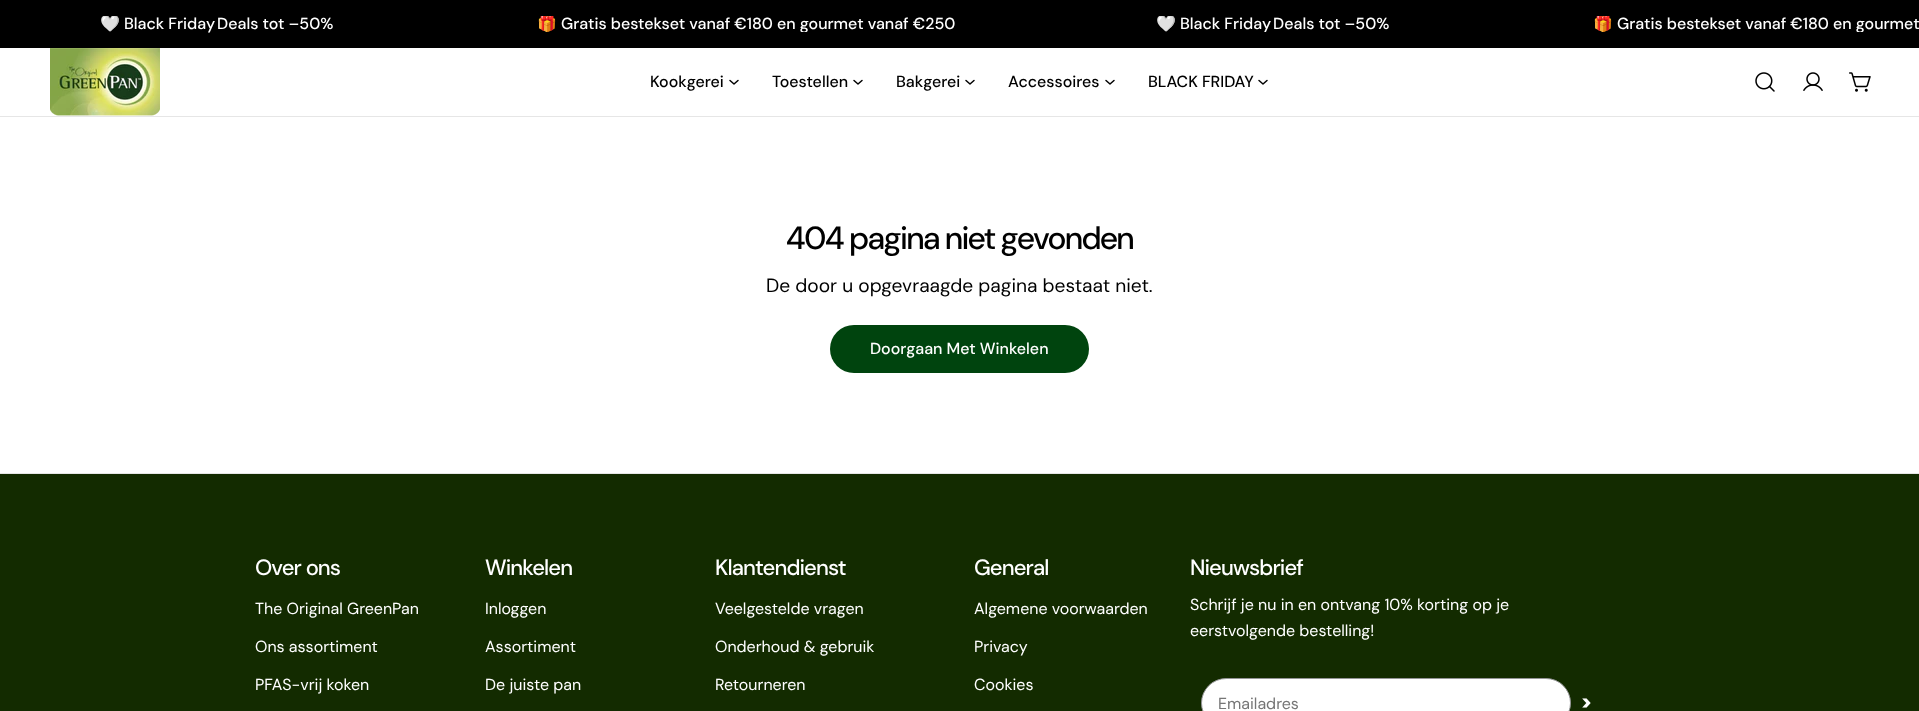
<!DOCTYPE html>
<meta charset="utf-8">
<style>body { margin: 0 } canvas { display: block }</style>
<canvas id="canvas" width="1919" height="711"></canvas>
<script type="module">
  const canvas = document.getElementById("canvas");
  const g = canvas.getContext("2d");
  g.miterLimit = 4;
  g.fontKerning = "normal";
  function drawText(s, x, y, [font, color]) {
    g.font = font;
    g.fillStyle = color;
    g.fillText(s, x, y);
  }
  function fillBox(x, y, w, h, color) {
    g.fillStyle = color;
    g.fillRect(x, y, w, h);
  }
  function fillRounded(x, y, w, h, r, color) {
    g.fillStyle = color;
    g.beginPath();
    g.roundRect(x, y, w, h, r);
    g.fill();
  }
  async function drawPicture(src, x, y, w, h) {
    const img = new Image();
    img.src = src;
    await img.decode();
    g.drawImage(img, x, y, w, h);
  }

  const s1 = ["16px Noto Color Emoji", "#FFFFFF"];
  const s2 = ["500 16px 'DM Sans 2'", "#FFFFFF"];
  const s3 = ["500 16px 'DM Sans 2'", "#000000"];
  const s4 = ["500 32px DM Sans", "#000000"];
  const s5 = ["19.2px DM Sans", "#000000"];
  const s6 = ["500 22px 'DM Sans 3'", "#FFFFFF"];
  const s7 = ["16px 'DM Sans 2'", "#FFFFFF"];
  const s8 = ["16px 'DM Sans 2'", "#767676"];
  const s9 = ["bold 20px Poppins", "#FFFFFF"];

  fillBox(0, 0, 1919, 711, "#FFFFFF");
  fillBox(0, 0, 1919, 48, "#000000");
  g.save();
  g.beginPath();
  g.rect(0, 16, 1919, 16);
  g.clip();
  drawText("🤍", 100, 29, s1);
  g.restore();
  drawText("Black Friday Deals tot –50%", 124, 29, s2);
  g.save();
  g.beginPath();
  g.rect(0, 16, 1919, 16);
  g.clip();
  drawText("🎁", 537, 29, s1);
  drawText("Gratis bestekset vanaf €180 en gourmet vanaf €250", 561, 29, s2);
  drawText("🤍", 1156, 29, s1);
  drawText("Black Friday Deals tot –50%", 1180, 29, s2);
  drawText("🎁", 1593, 29, s1);
  drawText("Gratis bestekset vanaf €180 en gourmet", 1617, 29, s2);
  g.restore();
  fillBox(0, 116, 1919, 1, "#E6E6E6");
  await drawPicture("pic1.png", 50, 48, 110, 68);
  drawText("Kookgerei", 650, 87, s3);
  g.beginPath();
  g.moveTo(738, 80.5);
  g.lineTo(734, 84);
  g.lineTo(730, 80.5);
  g.strokeStyle = "#000000";
  g.lineWidth = 1.5;
  g.lineCap = "round";
  g.lineJoin = "round";
  g.stroke();
  drawText("Toestellen", 772, 87, s3);
  g.beginPath();
  g.moveTo(862, 80.5);
  g.lineTo(858, 84);
  g.lineTo(854, 80.5);
  g.stroke();
  drawText("Bakgerei", 896, 87, s3);
  g.beginPath();
  g.moveTo(974, 80.5);
  g.lineTo(970, 84);
  g.lineTo(966, 80.5);
  g.stroke();
  drawText("Accessoires", 1008, 87, s3);
  g.beginPath();
  g.moveTo(1114, 80.5);
  g.lineTo(1110, 84);
  g.lineTo(1106, 80.5);
  g.stroke();
  drawText("BLACK FRIDAY", 1148, 87, s3);
  g.beginPath();
  g.moveTo(1267, 80.5);
  g.lineTo(1263, 84);
  g.lineTo(1259, 80.5);
  g.stroke();
  await drawPicture("pic2.png", 1755, 72, 20, 20);
  await drawPicture("pic3.png", 1803, 72, 20, 19);
  await drawPicture("pic4.png", 1849, 72, 22, 20);
  g.letterSpacing = "-1.25px";
  drawText("404 pagina niet gevonden", 786, 249, s4);
  g.letterSpacing = "0px";
  drawText("De door u opgevraagde pagina bestaat niet.", 766, 292, s5);
  fillRounded(830, 325, 259, 48, 24, "#00440E");
  drawText("Doorgaan Met Winkelen", 870, 354, s2);
  fillBox(0, 474, 1919, 237, "#132B00");
  fillBox(0, 473, 1919, 1, "#E6E6E6");
  g.letterSpacing = "-0.9px";
  drawText("Over ons", 255, 575, s6);
  g.letterSpacing = "0px";
  drawText("The Original GreenPan", 255, 614, s7);
  drawText("Ons assortiment", 255, 652, s7);
  drawText("PFAS-vrij koken", 255, 690, s7);
  g.letterSpacing = "-0.9px";
  drawText("Winkelen", 485, 575, s6);
  g.letterSpacing = "0px";
  drawText("Inloggen", 485, 614, s7);
  drawText("Assortiment", 485, 652, s7);
  drawText("De juiste pan", 485, 690, s7);
  g.letterSpacing = "-0.9px";
  drawText("Klantendienst", 715, 575, s6);
  g.letterSpacing = "0px";
  drawText("Veelgestelde vragen", 715, 614, s7);
  drawText("Onderhoud & gebruik", 715, 652, s7);
  drawText("Retourneren", 715, 690, s7);
  g.letterSpacing = "-0.9px";
  drawText("General", 974, 575, s6);
  g.letterSpacing = "0px";
  drawText("Algemene voorwaarden", 974, 614, s7);
  drawText("Privacy", 974, 652, s7);
  drawText("Cookies", 974, 690, s7);
  g.letterSpacing = "-0.9px";
  drawText("Nieuwsbrief", 1190, 575, s6);
  g.letterSpacing = "0px";
  drawText("Schrijf je nu in en ontvang 10% korting op je", 1190, 610, s7);
  drawText("eerstvolgende bestelling!", 1190, 636, s7);
  g.beginPath();
  g.roundRect(1201.5, 678.5, 369, 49, 24.5);
  g.fill();
  g.strokeStyle = "#949596";
  g.lineWidth = 1;
  g.lineJoin = "miter";
  g.stroke();
  drawText("Emailadres", 1218, 709, s8);
  drawText(">", 1581, 710, s9);
</script>
